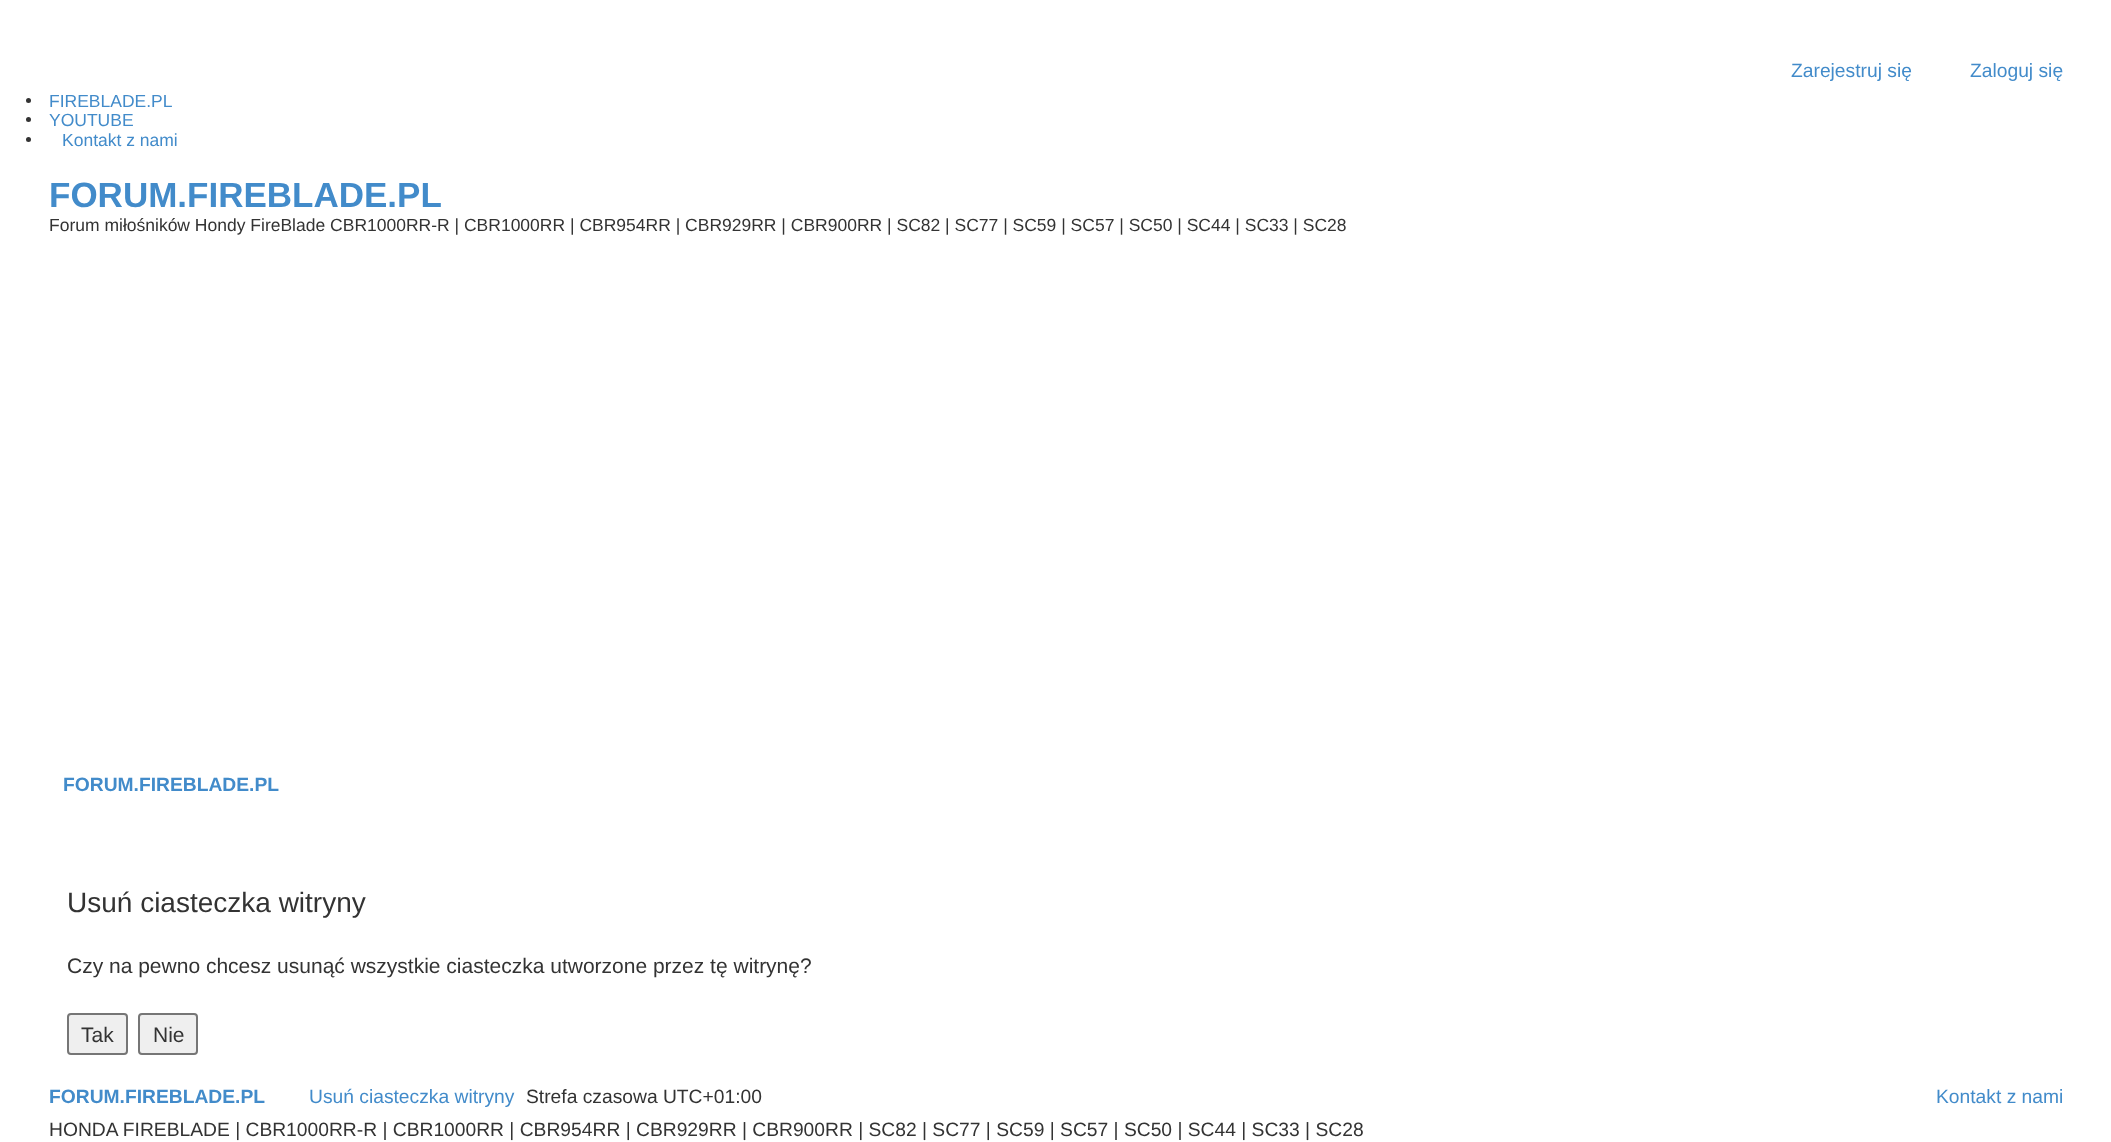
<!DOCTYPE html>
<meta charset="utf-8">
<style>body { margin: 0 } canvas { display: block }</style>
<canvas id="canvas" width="2111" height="1142"></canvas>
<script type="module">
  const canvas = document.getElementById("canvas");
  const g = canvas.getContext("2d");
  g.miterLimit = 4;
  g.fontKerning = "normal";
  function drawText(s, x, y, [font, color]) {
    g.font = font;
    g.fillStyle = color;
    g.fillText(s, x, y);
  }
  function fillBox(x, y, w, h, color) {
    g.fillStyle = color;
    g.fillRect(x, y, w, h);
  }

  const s1 = ["19.25px Liberation Sans", "#428BCA"];
  const s2 = ["17.5px Liberation Sans", "#428BCA"];
  const s3 = ["bold 35px Liberation Sans", "#428BCA"];
  const s4 = ["17.5px Liberation Sans", "#333333"];
  const s5 = ["bold 19.25px Liberation Sans", "#428BCA"];
  const s6 = ["28px Liberation Sans", "#333333"];
  const s7 = ["21px Liberation Sans", "#333333"];
  const s8 = ["19.25px Liberation Sans", "#333333"];

  fillBox(0, 0, 2111, 1142, "#FFFFFF");
  drawText("Zarejestruj się", 1791, 77, s1);
  drawText("Zaloguj się", 1970, 77, s1);
  g.fillStyle = "#333333";
  g.beginPath();
  g.arc(28.5, 100.5, 2.5, 0, Math.PI * 2);
  g.fill();
  drawText("FIREBLADE.PL", 49, 107, s2);
  g.fillStyle = "#333333";
  g.beginPath();
  g.arc(28.5, 119.5, 2.5, 0, Math.PI * 2);
  g.fill();
  drawText("YOUTUBE", 49, 126, s2);
  g.fillStyle = "#333333";
  g.beginPath();
  g.arc(28.5, 139.5, 2.5, 0, Math.PI * 2);
  g.fill();
  drawText("Kontakt z nami", 62, 146, s2);
  drawText("FORUM.FIREBLADE.PL", 49, 207, s3);
  drawText("Forum miłośników Hondy FireBlade CBR1000RR-R | CBR1000RR | CBR954RR | CBR929RR | CBR900RR | SC82 | SC77 | SC59 | SC57 | SC50 | SC44 | SC33 | SC28", 49, 231, s4);
  drawText("FORUM.FIREBLADE.PL", 63, 791, s5);
  drawText("Usuń ciasteczka witryny", 67, 912, s6);
  drawText("Czy na pewno chcesz usunąć wszystkie ciasteczka utworzone przez tę witrynę?", 67, 973, s7);
  g.fillStyle = "#EFEFEF";
  g.beginPath();
  g.roundRect(68, 1014, 59, 40, 3);
  g.fill();
  g.strokeStyle = "#767676";
  g.lineWidth = 2;
  g.stroke();
  drawText("Tak", 81, 1042, s7);
  g.fillStyle = "#EFEFEF";
  g.beginPath();
  g.roundRect(139, 1014, 58, 40, 3);
  g.fill();
  g.stroke();
  drawText("Nie", 153, 1042, s7);
  drawText("FORUM.FIREBLADE.PL", 49, 1103, s5);
  drawText("Usuń ciasteczka witryny", 309, 1103, s1);
  drawText("Strefa czasowa UTC+01:00", 526, 1103, s8);
  drawText("Kontakt z nami", 1936, 1103, s1);
  drawText("HONDA FIREBLADE | CBR1000RR-R | CBR1000RR | CBR954RR | CBR929RR | CBR900RR | SC82 | SC77 | SC59 | SC57 | SC50 | SC44 | SC33 | SC28", 49, 1136, s8);
</script>
